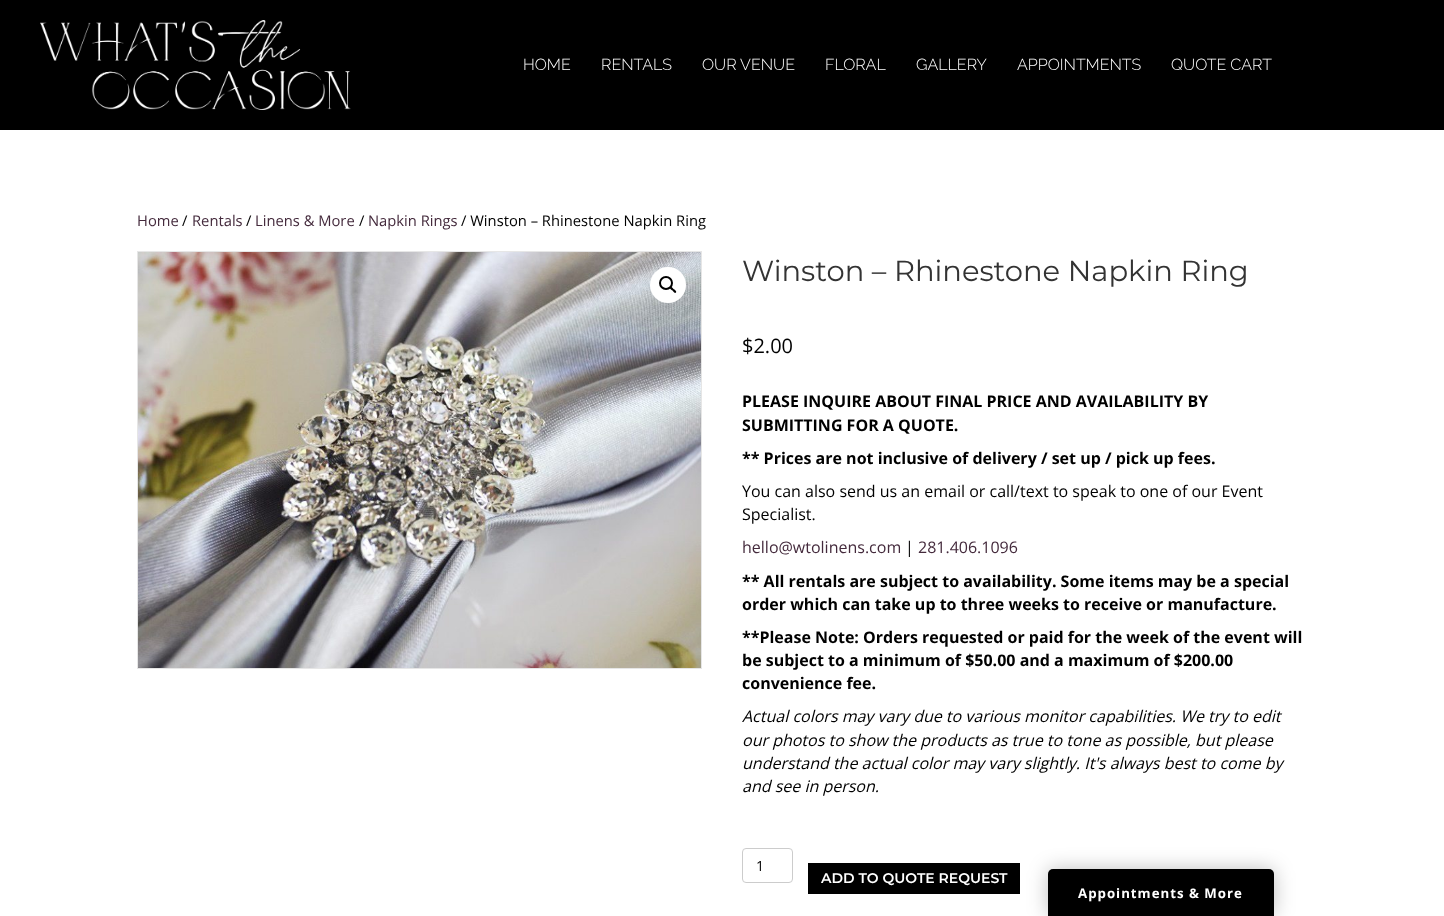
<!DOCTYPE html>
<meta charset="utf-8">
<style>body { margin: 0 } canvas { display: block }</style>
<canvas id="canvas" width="1444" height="916"></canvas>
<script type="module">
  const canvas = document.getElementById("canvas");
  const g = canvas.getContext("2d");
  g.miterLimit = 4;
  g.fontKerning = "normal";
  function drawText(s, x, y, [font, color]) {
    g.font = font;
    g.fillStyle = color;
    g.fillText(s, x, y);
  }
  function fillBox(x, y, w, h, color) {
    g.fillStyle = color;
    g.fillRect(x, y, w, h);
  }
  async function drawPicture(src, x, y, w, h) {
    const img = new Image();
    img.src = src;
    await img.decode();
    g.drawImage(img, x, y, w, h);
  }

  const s1 = ["300 16px Raleway", "#FFFFFF"];
  const s2 = ["14.75px Open Sans", "#442A3C"];
  const s3 = ["14.75px Open Sans", "#000000"];
  const s4 = ["29px Montserrat", "#333333"];
  const s5 = ["20px Open Sans", "#000000"];
  const s6 = ["bold 16px Open Sans", "#000000"];
  const s7 = ["16px Open Sans", "#000000"];
  const s8 = ["16px Open Sans", "#442A3C"];
  const s9 = ["italic 16px Open Sans", "#000000"];
  const s10 = ["14px Open Sans", "#000000"];
  const s11 = ["600 14px Montserrat", "#FFFFFF"];
  const s12 = ["bold 13.25px Open Sans", "#FFFFFF"];

  fillBox(0, 0, 1444, 916, "#FFFFFF");
  fillBox(0, 0, 1444, 130, "#000000");
  await drawPicture("pic1.png", 40, 20, 311, 90);
  drawText("HOME", 523, 70, s1);
  drawText("RENTALS", 601, 70, s1);
  drawText("OUR VENUE", 702, 70, s1);
  drawText("FLORAL", 825, 70, s1);
  drawText("GALLERY", 916, 70, s1);
  drawText("APPOINTMENTS", 1017, 70, s1);
  drawText("QUOTE CART", 1171, 70, s1);
  drawText("Home", 137, 226, s2);
  drawText("/", 182, 226, s3);
  drawText("Rentals", 192, 226, s2);
  drawText("/", 246, 226, s3);
  drawText("Linens & More", 255, 226, s2);
  drawText("/", 359, 226, s3);
  drawText("Napkin Rings", 368, 226, s2);
  drawText("/ Winston – Rhinestone Napkin Ring", 461, 226, s3);
  g.strokeStyle = "#E6E6E6";
  g.strokeRect(137.5, 251.5, 564, 417);
  await drawPicture("pic2.png", 138, 252, 563, 416);
  g.fillStyle = "#FFFFFF";
  g.beginPath();
  g.arc(668, 285, 18, 0, Math.PI * 2);
  g.fill();
  g.beginPath();
  g.arc(666, 283, 6, 0, Math.PI * 2);
  g.strokeStyle = "#000000";
  g.lineWidth = 2;
  g.stroke();
  g.fillStyle = "#000000";
  g.beginPath();
  g.moveTo(670, 287);
  g.bezierCurveTo(671.5, 286, 673, 288.5, 673.5, 289);
  g.bezierCurveTo(674.5, 289.5, 677, 291.5, 676, 292.5);
  g.bezierCurveTo(674.5, 294, 673, 291, 672.5, 290.5);
  g.bezierCurveTo(671.5, 290, 669, 288, 670, 287);
  g.closePath();
  g.fill();
  drawText("Winston – Rhinestone Napkin Ring", 742, 281, s4);
  drawText("$2.00", 742, 353, s5);
  drawText("PLEASE INQUIRE ABOUT FINAL PRICE AND AVAILABILITY BY", 742, 407, s6);
  drawText("SUBMITTING FOR A QUOTE.", 742, 431, s6);
  drawText("** Prices are not inclusive of delivery / set up / pick up fees.", 742, 464, s6);
  drawText("You can also send us an email or call/text to speak to one of our Event", 742, 497, s7);
  drawText("Specialist.", 742, 520, s7);
  drawText("hello@wtolinens.com", 742, 553, s8);
  drawText("|", 905, 553, s7);
  drawText("281.406.1096", 918, 553, s8);
  drawText("** All rentals are subject to availability. Some items may be a special", 742, 587, s6);
  drawText("order which can take up to three weeks to receive or manufacture.", 742, 610, s6);
  drawText("**Please Note: Orders requested or paid for the week of the event will", 742, 643, s6);
  drawText("be subject to a minimum of $50.00 and a maximum of $200.00", 742, 666, s6);
  drawText("convenience fee.", 742, 689, s6);
  drawText("Actual colors may vary due to various monitor capabilities. We try to edit", 742, 722, s9);
  drawText("our photos to show the products as true to tone as possible, but please", 742, 746, s9);
  drawText("understand the actual color may vary slightly. It's always best to come by", 742, 769, s9);
  drawText("and see in person.", 742, 792, s9);
  g.beginPath();
  g.roundRect(742.5, 848.5, 50, 34, 3.5);
  g.strokeStyle = "#CCCCCC";
  g.lineWidth = 1;
  g.stroke();
  drawText("1", 756, 871, s10);
  fillBox(808, 863, 212, 31, "#000000");
  drawText("ADD TO QUOTE REQUEST", 821, 883, s11);
  g.fillStyle = "rgba(0, 0, 0, 0.25)";
  g.filter = "blur(10px)";
  g.beginPath();
  g.roundRect(1048, 869, 226, 47, 5);
  g.fill();
  g.filter = "none";
  g.fillStyle = "#000000";
  g.beginPath();
  g.roundRect(1048, 869, 226, 47, [5, 5, 0, 0]);
  g.fill();
  g.letterSpacing = "1px";
  drawText("Appointments & More", 1078, 898, s12);
</script>
